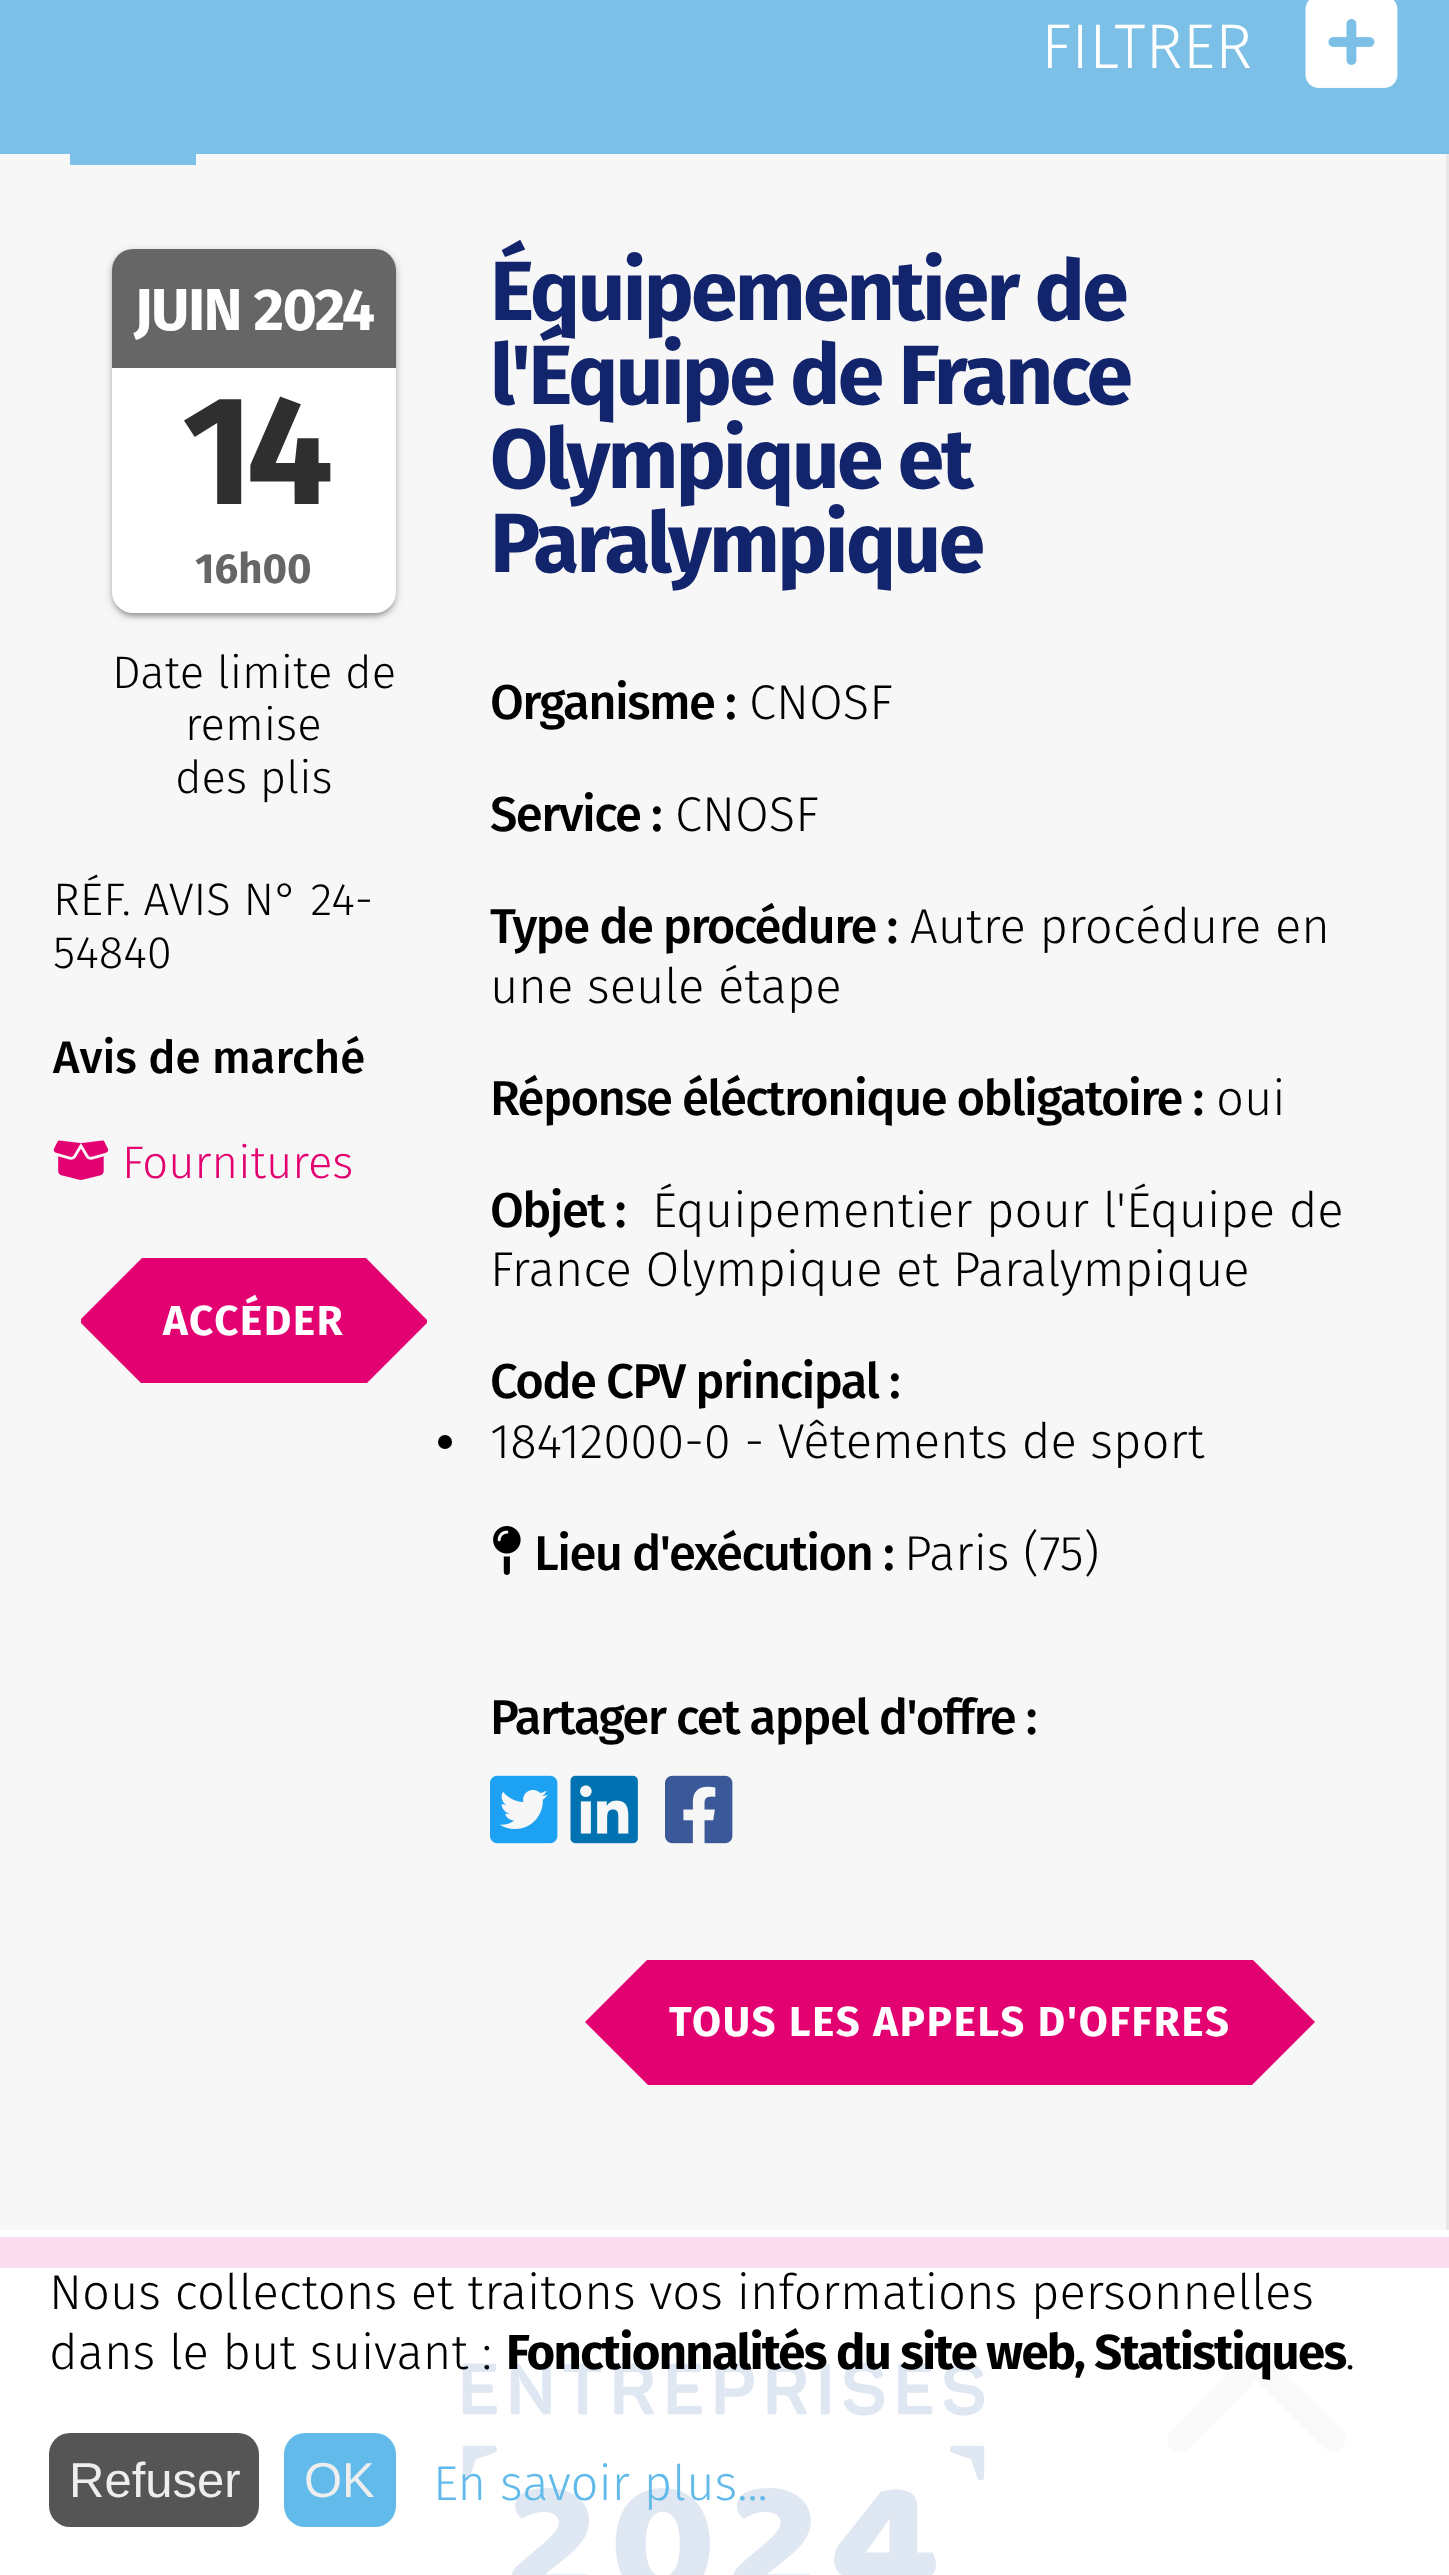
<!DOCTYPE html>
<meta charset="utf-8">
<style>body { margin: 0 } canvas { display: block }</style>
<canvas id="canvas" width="1449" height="2575"></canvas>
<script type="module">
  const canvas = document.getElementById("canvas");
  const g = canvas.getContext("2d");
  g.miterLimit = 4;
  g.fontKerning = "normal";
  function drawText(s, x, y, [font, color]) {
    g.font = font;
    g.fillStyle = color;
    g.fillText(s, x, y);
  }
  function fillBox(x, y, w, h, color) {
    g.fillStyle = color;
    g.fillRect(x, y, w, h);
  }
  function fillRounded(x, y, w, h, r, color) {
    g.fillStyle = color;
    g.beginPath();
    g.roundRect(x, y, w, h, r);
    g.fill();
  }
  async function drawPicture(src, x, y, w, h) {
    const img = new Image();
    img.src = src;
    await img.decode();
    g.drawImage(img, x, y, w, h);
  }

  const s1 = ["300 63px Fira Sans", "#FFFFFF"];
  const s2 = ["bold 59px Fira Sans", "#FFFFFF"];
  const s3 = ["bold 155px Fira Sans", "#2F2F2F"];
  const s4 = ["bold 42px Fira Sans", "#666666"];
  const s5 = ["300 45.5px Fira Sans", "#000000"];
  const s6 = ["500 45.5px Fira Sans", "#000000"];
  const s7 = ["300 45.5px Fira Sans", "#E30071"];
  const s8 = ["bold 42px Fira Sans", "#FFFFFF"];
  const s9 = ["bold 84px Fira Sans", "#12246C"];
  const s10 = ["500 49px Fira Sans", "#000000"];
  const s11 = ["300 49px Fira Sans", "#000000"];
  const s12 = ["bold 49px Fira Sans", "#000000"];
  const s13 = ["49px Liberation Sans", "#EEEEEE"];
  const s14 = ["300 49px Fira Sans", "#62BAEA"];

  fillBox(0, 0, 1449, 2575, "#FFFFFF");
  fillBox(0, 0, 1449, 154, "#7CC0E8");
  drawText("FILTRER", 1041, 68, s1);
  await drawPicture("pic1.png", 1305, 0, 93, 88);
  fillBox(1446, 154, 3, 2083, "#E7E7E7");
  fillBox(1446, 2230, 3, 7, "#FCFCFC");
  fillBox(0, 154, 1446, 2076, "#F7F7F7");
  g.fillStyle = "rgba(0, 0, 0, 0.2)";
  g.filter = "blur(5px)";
  g.beginPath();
  g.roundRect(112, 252, 284, 364, 21);
  g.fill();
  g.filter = "none";
  g.fillStyle = "rgba(0, 0, 0, 0.12)";
  g.filter = "blur(2px)";
  g.beginPath();
  g.roundRect(116, 259, 276, 357, 18);
  g.fill();
  g.filter = "none";
  g.fillStyle = "rgba(0, 0, 0, 0.14)";
  g.filter = "blur(2px)";
  g.beginPath();
  g.roundRect(112, 252, 284, 364, 21);
  g.fill();
  g.filter = "none";
  fillRounded(112, 249, 284, 364, 21, "#FFFFFF");
  g.fillStyle = "#666666";
  g.beginPath();
  g.roundRect(112, 249, 284, 119, [21, 21, 0, 0]);
  g.fill();
  g.letterSpacing = "-1.6px";
  drawText("JUIN 2024", 134, 330, s2);
  g.letterSpacing = "-8px";
  drawText("14", 182, 504, s3);
  g.letterSpacing = "0px";
  drawText("16h00", 195, 583, s4);
  drawText("Date limite de", 112, 688, s5);
  drawText("remise", 185, 740, s5);
  drawText("des plis", 175, 793, s5);
  drawText("RÉF. AVIS N° 24-", 53, 915, s5);
  drawText("54840", 53, 968, s5);
  drawText("Avis de marché", 53, 1073, s6);
  await drawPicture("pic2.png", 53, 1140, 56, 40);
  drawText("Fournitures", 122, 1178, s7);
  g.beginPath();
  g.moveTo(81, 1323);
  g.lineTo(81, 1319);
  g.lineTo(142, 1258);
  g.lineTo(366, 1258);
  g.lineTo(427, 1320);
  g.lineTo(427, 1323);
  g.lineTo(367, 1383);
  g.lineTo(141, 1383);
  g.closePath();
  g.fill();
  g.letterSpacing = "1.75px";
  drawText("ACCÉDER", 163, 1335, s8);
  g.letterSpacing = "-2.75px";
  drawText("Équipementier de", 490, 320, s9);
  drawText("l'Équipe de France", 490, 404, s9);
  drawText("Olympique et", 490, 488, s9);
  drawText("Paralympique", 490, 572, s9);
  g.letterSpacing = "-1.6px";
  drawText("Organisme :", 490, 719, s10);
  g.letterSpacing = "0px";
  drawText("CNOSF", 749, 719, s11);
  g.letterSpacing = "-1.6px";
  drawText("Service :", 490, 831, s10);
  g.letterSpacing = "0px";
  drawText("CNOSF", 675, 831, s11);
  g.letterSpacing = "-1.6px";
  drawText("Type de procédure :", 490, 943, s10);
  g.letterSpacing = "0px";
  drawText("Autre procédure en", 910, 943, s11);
  drawText("une seule étape", 490, 1003, s11);
  g.letterSpacing = "-1.6px";
  drawText("Réponse éléctronique obligatoire :", 490, 1115, s10);
  g.letterSpacing = "0px";
  drawText("oui", 1216, 1115, s11);
  g.letterSpacing = "-1.6px";
  drawText("Objet :", 490, 1227, s10);
  g.letterSpacing = "0px";
  drawText("Équipementier pour l'Équipe de", 652, 1227, s11);
  drawText("France Olympique et Paralympique", 490, 1286, s11);
  g.letterSpacing = "-1.6px";
  drawText("Code CPV principal :", 490, 1398, s10);
  g.beginPath();
  g.arc(445, 1442, 7, 0, Math.PI * 2);
  g.fill();
  g.letterSpacing = "0px";
  drawText("18412000-0 - Vêtements de sport", 490, 1458, s11);
  await drawPicture("pic3.png", 493, 1526, 28, 49);
  g.letterSpacing = "-1.6px";
  drawText("Lieu d'exécution :", 534, 1570, s10);
  g.letterSpacing = "0px";
  drawText("Paris (75)", 904, 1570, s11);
  g.letterSpacing = "-1.6px";
  drawText("Partager cet appel d'offre :", 490, 1734, s10);
  await drawPicture("pic4.png", 490, 1775, 68, 69);
  await drawPicture("pic5.png", 570, 1775, 68, 69);
  await drawPicture("pic6.png", 665, 1775, 68, 69);
  g.fillStyle = "#E30071";
  g.beginPath();
  g.moveTo(585, 2022);
  g.lineTo(648, 2085);
  g.lineTo(1252, 2085);
  g.lineTo(1315, 2022);
  g.lineTo(1253, 1960);
  g.lineTo(647, 1960);
  g.closePath();
  g.fill();
  g.letterSpacing = "1.75px";
  drawText("TOUS LES APPELS D'OFFRES", 669, 2036, s8);
  fillBox(70, 154, 126, 11, "#7CC0E8");
  fillBox(0, 2237, 1449, 31, "#FBDEED");
  g.letterSpacing = "0px";
  drawText("Nous collectons et traitons vos informations personnelles", 49, 2309, s11);
  await drawPicture("pic7.png", 462, 2363, 523, 212);
  drawText("dans le but suivant :", 49, 2369, s11);
  g.fillStyle = "#FAFAFA";
  g.beginPath();
  g.moveTo(1265, 2354);
  g.lineTo(1342, 2430);
  g.bezierCurveTo(1347, 2435, 1347, 2443, 1342, 2448);
  g.bezierCurveTo(1337, 2453, 1329, 2453, 1324, 2448);
  g.lineTo(1256, 2380);
  g.lineTo(1189, 2448);
  g.bezierCurveTo(1184, 2453, 1176, 2453, 1171, 2448);
  g.bezierCurveTo(1166, 2443, 1166, 2436, 1171, 2431);
  g.lineTo(1247, 2354);
  g.bezierCurveTo(1250, 2351, 1253, 2350, 1256, 2350);
  g.bezierCurveTo(1259, 2350, 1263, 2351, 1265, 2354);
  g.fill();
  g.letterSpacing = "-1.6px";
  drawText("Fonctionnalités du site web, Statistiques", 506, 2369, s12);
  g.letterSpacing = "0px";
  drawText(".", 1345, 2369, s11);
  fillRounded(49, 2433, 210, 94, 21, "#555555");
  drawText("Refuser", 69, 2497, s13);
  fillRounded(284, 2433, 112, 94, 21, "#62BAEA");
  drawText("OK", 304, 2497, s13);
  drawText("En savoir plus...", 433, 2500, s14);
</script>
